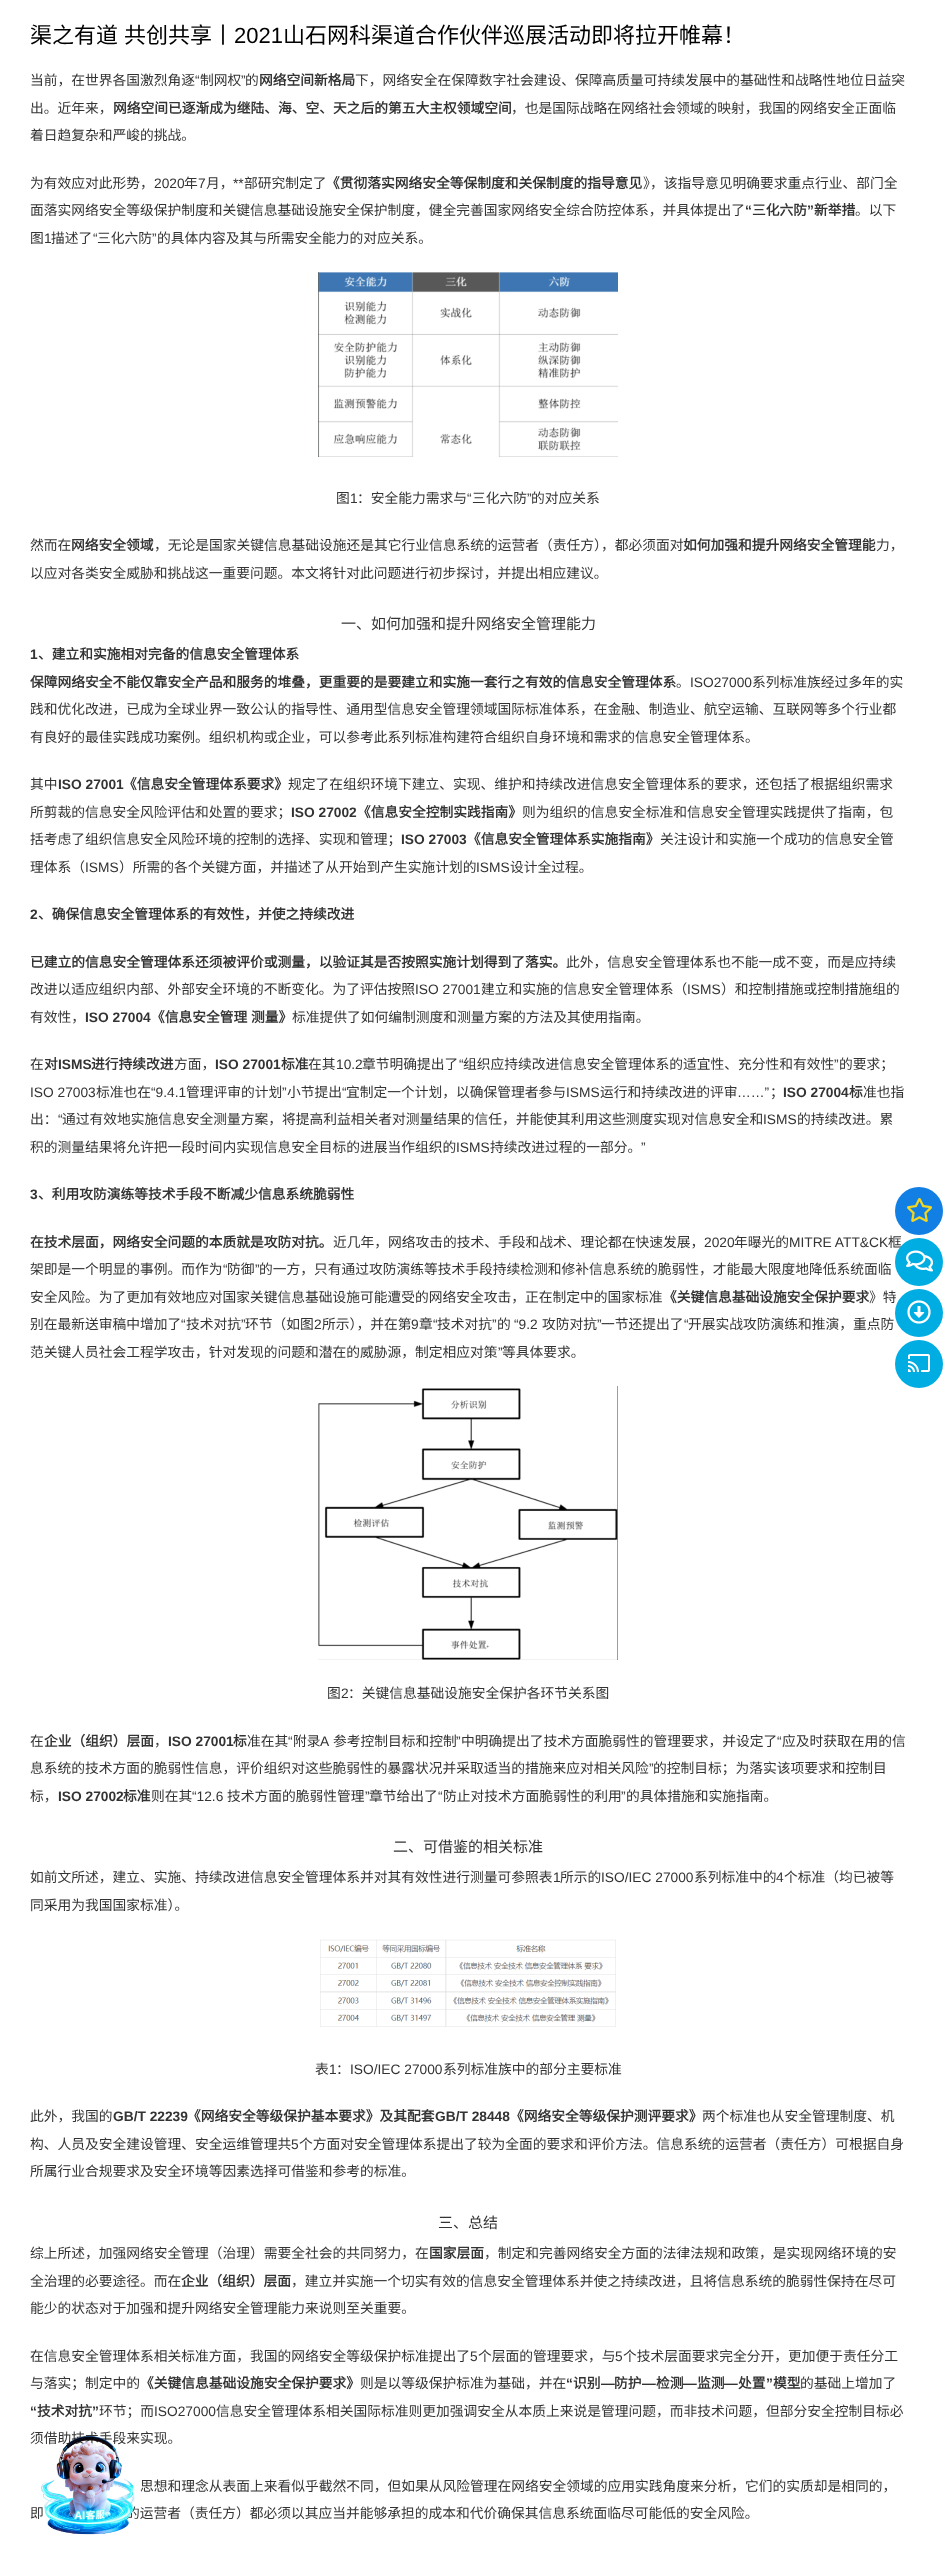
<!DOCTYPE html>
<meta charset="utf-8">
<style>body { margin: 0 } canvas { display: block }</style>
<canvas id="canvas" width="945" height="2575"></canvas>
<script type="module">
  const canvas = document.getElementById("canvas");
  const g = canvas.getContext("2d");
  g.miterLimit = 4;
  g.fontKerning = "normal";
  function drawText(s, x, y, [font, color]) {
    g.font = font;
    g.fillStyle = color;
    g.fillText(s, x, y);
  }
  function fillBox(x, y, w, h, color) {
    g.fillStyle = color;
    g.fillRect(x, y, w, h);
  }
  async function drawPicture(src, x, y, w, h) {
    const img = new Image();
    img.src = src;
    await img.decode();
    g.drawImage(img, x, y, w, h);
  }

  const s1 = ["22px Noto Sans CJK SC", "#000000"];
  const s2 = ["22px Liberation Sans", "#000000"];
  const s3 = ["13.75px Noto Sans CJK SC", "#333333"];
  const s4 = ["13.75px Liberation Sans", "#333333"];
  const s5 = ["bold 13.75px Noto Sans CJK SC", "#333333"];
  const s6 = ["bold 13.75px Liberation Sans", "#333333"];
  const s7 = ["15px Noto Sans CJK SC", "#333333"];

  fillBox(0, 0, 945, 2575, "#FFFFFF");
  g.wordSpacing = "1px";
  drawText("渠之有道 共创共享丨", 30, 43, s1);
  g.wordSpacing = "0px";
  drawText("2021", 234, 43, s2);
  drawText("山石网科渠道合作伙伴巡展活动即将拉开帷幕！", 283, 43, s1);
  drawText("当前，在世界各国激烈角逐", 30, 85, s3);
  drawText("“", 195, 85, s4);
  drawText("制网权", 200, 85, s3);
  drawText("”", 241, 85, s4);
  drawText("的", 245, 85, s3);
  drawText("网络空间新格局", 259, 85, s5);
  drawText("下，网络安全在保障数字社会建设、保障高质量可持续发展中的基础性和战略性地位日益突", 355, 85, s3);
  drawText("出。近年来，", 30, 113, s3);
  drawText("网络空间已逐渐成为继陆、海、空、天之后的第五大主权领域空间", 113, 113, s5);
  drawText("，也是国际战略在网络社会领域的映射，我国的网络安全正面临", 511, 113, s3);
  drawText("着日趋复杂和严峻的挑战。", 30, 140, s3);
  drawText("为有效应对此形势，", 30, 188, s3);
  drawText("2020", 154, 188, s4);
  drawText("年", 184, 188, s3);
  drawText("7", 198, 188, s4);
  drawText("月，", 206, 188, s3);
  drawText("**", 233, 188, s4);
  drawText("部研究制定了", 244, 188, s3);
  drawText("《贯彻落实网络安全等保制度和关保制度的指导意见", 326, 188, s5);
  drawText("》，该指导意见明确要求重点行业、部门全", 643, 188, s3);
  drawText("面落实网络安全等级保护制度和关键信息基础设施安全保护制度，健全完善国家网络安全综合防控体系，并具体提出了", 30, 215, s3);
  drawText("“", 745, 215, s6);
  drawText("三化六防", 752, 215, s5);
  drawText("”", 807, 215, s6);
  drawText("新举措", 814, 215, s5);
  drawText("。以下", 855, 215, s3);
  drawText("图", 30, 243, s3);
  drawText("1", 44, 243, s4);
  drawText("描述了", 51, 243, s3);
  drawText("“", 93, 243, s4);
  drawText("三化六防", 97, 243, s3);
  drawText("”", 152, 243, s4);
  drawText("的具体内容及其与所需安全能力的对应关系。", 157, 243, s3);
  await drawPicture("pic1.png", 318, 272, 300, 185);
  drawText("图", 336, 503, s3);
  drawText("1", 350, 503, s4);
  drawText("：安全能力需求与", 357, 503, s3);
  drawText("“", 467, 503, s4);
  drawText("三化六防", 472, 503, s3);
  drawText("”", 527, 503, s4);
  drawText("的对应关系", 531, 503, s3);
  drawText("然而在", 30, 550, s3);
  drawText("网络安全领域", 71, 550, s5);
  drawText("，无论是国家关键信息基础设施还是其它行业信息系统的运营者（责任方），都必须面对", 154, 550, s3);
  drawText("如何加强和提升网络安全管理能", 683, 550, s5);
  drawText("力，", 876, 550, s3);
  drawText("以应对各类安全威胁和挑战这一重要问题。本文将针对此问题进行初步探讨，并提出相应建议。", 30, 578, s3);
  drawText("一、如何加强和提升网络安全管理能力", 341, 629, s7);
  drawText("1", 30, 659, s6);
  drawText("、建立和实施相对完备的信息安全管理体系", 38, 659, s5);
  drawText("保障网络安全不能仅靠安全产品和服务的堆叠，更重要的是要建立和实施一套行之有效的信息安全管理体系", 30, 687, s5);
  drawText("。", 676, 687, s3);
  drawText("ISO27000", 690, 687, s4);
  drawText("系列标准族经过多年的实", 752, 687, s3);
  drawText("践和优化改进，已成为全球业界一致公认的指导性、通用型信息安全管理领域国际标准体系，在金融、制造业、航空运输、互联网等多个行业都", 30, 714, s3);
  drawText("有良好的最佳实践成功案例。组织机构或企业，可以参考此系列标准构建符合组织自身环境和需求的信息安全管理体系。", 30, 742, s3);
  drawText("其中", 30, 789, s3);
  drawText("ISO 27001", 58, 789, s6);
  drawText("《信息安全管理体系要求》", 123, 789, s5);
  drawText("规定了在组织环境下建立、实现、维护和持续改进信息安全管理体系的要求，还包括了根据组织需求", 288, 789, s3);
  drawText("所剪裁的信息安全风险评估和处置的要求；", 30, 817, s3);
  drawText("ISO 27002", 291, 817, s6);
  drawText("《信息安全控制实践指南》", 357, 817, s5);
  drawText("则为组织的信息安全标准和信息安全管理实践提供了指南，包", 522, 817, s3);
  drawText("括考虑了组织信息安全风险环境的控制的选择、实现和管理；", 30, 844, s3);
  drawText("ISO 27003", 401, 844, s6);
  drawText("《信息安全管理体系实施指南》", 467, 844, s5);
  drawText("关注设计和实施一个成功的信息安全管", 660, 844, s3);
  drawText("理体系（", 30, 872, s3);
  drawText("ISMS", 85, 872, s4);
  drawText("）所需的各个关键方面，并描述了从开始到产生实施计划的", 119, 872, s3);
  drawText("ISMS", 476, 872, s4);
  drawText("设计全过程。", 510, 872, s3);
  drawText("2", 30, 919, s6);
  drawText("、确保信息安全管理体系的有效性，并使之持续改进", 38, 919, s5);
  drawText("已建立的信息安全管理体系还须被评价或测量，以验证其是否按照实施计划得到了落实。", 30, 967, s5);
  drawText("此外，信息安全管理体系也不能一成不变，而是应持续", 566, 967, s3);
  drawText("改进以适应组织内部、外部安全环境的不断变化。为了评估按照", 30, 994, s3);
  drawText("ISO 27001", 415, 994, s4);
  drawText("建立和实施的信息安全管理体系（", 481, 994, s3);
  drawText("ISMS", 687, 994, s4);
  drawText("）和控制措施或控制措施组的", 721, 994, s3);
  drawText("有效性，", 30, 1022, s3);
  drawText("ISO 27004", 85, 1022, s6);
  drawText("《信息安全管理", 151, 1022, s5);
  drawText("测量》", 251, 1022, s5);
  drawText("标准提供了如何编制测度和测量方案的方法及其使用指南。", 292, 1022, s3);
  drawText("在", 30, 1069, s3);
  drawText("对", 44, 1069, s5);
  drawText("ISMS", 58, 1069, s6);
  drawText("进行持续改进", 91, 1069, s5);
  drawText("方面，", 174, 1069, s3);
  drawText("ISO 27001", 215, 1069, s6);
  drawText("标准", 281, 1069, s5);
  drawText("在其", 308, 1069, s3);
  drawText("10.2", 336, 1069, s4);
  drawText("章节明确提出了", 362, 1069, s3);
  drawText("“", 459, 1069, s4);
  drawText("组织应持续改进信息安全管理体系的适宜性、充分性和有效性", 463, 1069, s3);
  drawText("”", 834, 1069, s4);
  drawText("的要求；", 839, 1069, s3);
  drawText("ISO 27003", 30, 1097, s4);
  drawText("标准也在", 96, 1097, s3);
  drawText("“9.4.1", 151, 1097, s4);
  drawText("管理评审的计划", 186, 1097, s3);
  drawText("”", 282, 1097, s4);
  drawText("小节提出", 287, 1097, s3);
  drawText("“", 342, 1097, s4);
  drawText("宜制定一个计划，以确保管理者参与", 346, 1097, s3);
  drawText("ISMS", 566, 1097, s4);
  drawText("运行和持续改进的评审", 600, 1097, s3);
  drawText("……”", 737, 1097, s4);
  drawText("；", 770, 1097, s3);
  drawText("ISO 27004", 783, 1097, s6);
  drawText("标", 849, 1097, s5);
  drawText("准也指", 863, 1097, s3);
  drawText("出：", 30, 1124, s3);
  drawText("“", 58, 1124, s4);
  drawText("通过有效地实施信息安全测量方案，将提高利益相关者对测量结果的信任，并能使其利用这些测度实现对信息安全和", 62, 1124, s3);
  drawText("ISMS", 763, 1124, s4);
  drawText("的持续改进。累", 797, 1124, s3);
  drawText("积的测量结果将允许把一段时间内实现信息安全目标的进展当作组织的", 30, 1152, s3);
  drawText("ISMS", 456, 1152, s4);
  drawText("持续改进过程的一部分。", 490, 1152, s3);
  drawText("”", 641, 1152, s4);
  drawText("3", 30, 1199, s6);
  drawText("、利用攻防演练等技术手段不断减少信息系统脆弱性", 38, 1199, s5);
  drawText("在技术层面，网络安全问题的本质就是攻防对抗。", 30, 1247, s5);
  drawText("近几年，网络攻击的技术、手段和战术、理论都在快速发展，", 333, 1247, s3);
  drawText("2020", 704, 1247, s4);
  drawText("年曝光的", 734, 1247, s3);
  drawText("MITRE ATT&CK", 789, 1247, s4);
  drawText("框", 888, 1247, s3);
  drawText("架即是一个明显的事例。而作为", 30, 1274, s3);
  drawText("“", 223, 1274, s4);
  drawText("防御", 227, 1274, s3);
  drawText("”", 255, 1274, s4);
  drawText("的一方，只有通过攻防演练等技术手段持续检测和修补信息系统的脆弱性，才能最大限度地降低系统面临", 259, 1274, s3);
  drawText("安全风险。为了更加有效地应对国家关键信息基础设施可能遭受的网络安全攻击，正在制定中的国家标准", 30, 1302, s3);
  drawText("《关键信息基础设施安全保护要求", 663, 1302, s5);
  drawText("》特", 869, 1302, s3);
  drawText("别在最新送审稿中增加了", 30, 1329, s3);
  drawText("“", 181, 1329, s4);
  drawText("技术对抗", 186, 1329, s3);
  drawText("”", 241, 1329, s4);
  drawText("环节（如图", 245, 1329, s3);
  drawText("2", 314, 1329, s4);
  drawText("所示），并在第", 322, 1329, s3);
  drawText("9", 411, 1329, s4);
  drawText("章", 419, 1329, s3);
  drawText("“", 433, 1329, s4);
  drawText("技术对抗", 437, 1329, s3);
  drawText("”", 492, 1329, s4);
  drawText("的", 497, 1329, s3);
  drawText("“9.2", 514, 1329, s4);
  drawText("攻防对抗", 542, 1329, s3);
  drawText("”", 597, 1329, s4);
  drawText("一节还提出了", 601, 1329, s3);
  drawText("“", 684, 1329, s4);
  drawText("开展实战攻防演练和推演，重点防", 688, 1329, s3);
  drawText("范关键人员社会工程学攻击，针对发现的问题和潜在的威胁源，制定相应对策", 30, 1357, s3);
  drawText("”", 498, 1357, s4);
  drawText("等具体要求。", 502, 1357, s3);
  await drawPicture("pic2.png", 318, 1386, 300, 274);
  drawText("图", 327, 1698, s3);
  drawText("2", 341, 1698, s4);
  drawText("：关键信息基础设施安全保护各环节关系图", 348, 1698, s3);
  drawText("在", 30, 1746, s3);
  drawText("企业（组织）层面", 44, 1746, s5);
  drawText("ISO 27001", 168, 1746, s6);
  drawText("标", 233, 1746, s5);
  drawText("准在其", 247, 1746, s3);
  drawText("“", 288, 1746, s4);
  drawText("附录", 293, 1746, s3);
  drawText("A", 320, 1746, s4);
  drawText("参考控制目标和控制", 333, 1746, s3);
  drawText("”", 456, 1746, s4);
  drawText("中明确提出了技术方面脆弱性的管理要求，并设定了", 461, 1746, s3);
  drawText("“", 777, 1746, s4);
  drawText("应及时获取在用的信", 782, 1746, s3);
  drawText("，", 154, 1746, s3);
  drawText("息系统的技术方面的脆弱性信息，评价组织对这些脆弱性的暴露状况并采取适当的措施来应对相关风险", 30, 1773, s3);
  drawText("”", 649, 1773, s4);
  drawText("的控制目标；为落实该项要求和控制目", 653, 1773, s3);
  drawText("标，", 30, 1801, s3);
  drawText("ISO 27002", 58, 1801, s6);
  drawText("标准", 123, 1801, s5);
  drawText("则在其", 151, 1801, s3);
  drawText("“12.6", 192, 1801, s4);
  drawText("技术方面的脆弱性管理", 227, 1801, s3);
  drawText("”", 365, 1801, s4);
  drawText("章节给出了", 369, 1801, s3);
  drawText("“", 438, 1801, s4);
  drawText("防止对技术方面脆弱性的利用", 443, 1801, s3);
  drawText("”", 621, 1801, s4);
  drawText("的具体措施和实施指南。", 626, 1801, s3);
  drawText("二、可借鉴的相关标准", 393, 1852, s7);
  drawText("如前文所述，建立、实施、持续改进信息安全管理体系并对其有效性进行测量可参照表", 30, 1882, s3);
  drawText("1", 553, 1882, s4);
  drawText("所示的", 560, 1882, s3);
  drawText("ISO/IEC 27000", 601, 1882, s4);
  drawText("系列标准中的", 694, 1882, s3);
  drawText("4", 776, 1882, s4);
  drawText("个标准（均已被等", 784, 1882, s3);
  drawText("同采用为我国国家标准）。", 30, 1910, s3);
  await drawPicture("pic3.png", 320, 1939, 296, 88);
  drawText("表", 315, 2074, s3);
  drawText("1", 329, 2074, s4);
  drawText("：", 336, 2074, s3);
  drawText("ISO/IEC 27000", 350, 2074, s4);
  drawText("系列标准族中的部分主要标准", 443, 2074, s3);
  drawText("此外，我国的", 30, 2121, s3);
  drawText("GB/T 22239", 113, 2121, s6);
  drawText("《网络安全等级保护基本要求》及其配套", 187, 2121, s5);
  drawText("GB/T 28448", 435, 2121, s6);
  drawText("《网络安全等级保护测评要求》", 510, 2121, s5);
  drawText("两个标准也从安全管理制度、机", 702, 2121, s3);
  drawText("构、人员及安全建设管理、安全运维管理共", 30, 2149, s3);
  drawText("5", 291, 2149, s4);
  drawText("个方面对安全管理体系提出了较为全面的要求和评价方法。信息系统的运营者（责任方）可根据自身", 299, 2149, s3);
  drawText("所属行业合规要求及安全环境等因素选择可借鉴和参考的标准。", 30, 2176, s3);
  drawText("三、总结", 438, 2228, s7);
  drawText("综上所述，加强网络安全管理（治理）需要全社会的共同努力，在", 30, 2258, s3);
  drawText("国家层面", 429, 2258, s5);
  drawText("，制定和完善网络安全方面的法律法规和政策，是实现网络环境的安", 484, 2258, s3);
  drawText("全治理的必要途径。而在", 30, 2286, s3);
  drawText("企业（组织）层面", 181, 2286, s5);
  drawText("，建立并实施一个切实有效的信息安全管理体系并使之持续改进，且将信息系统的脆弱性保持在尽可", 291, 2286, s3);
  drawText("能少的状态对于加强和提升网络安全管理能力来说则至关重要。", 30, 2313, s3);
  drawText("在信息安全管理体系相关标准方面，我国的网络安全等级保护标准提出了", 30, 2361, s3);
  drawText("5", 470, 2361, s4);
  drawText("个层面的管理要求，与", 478, 2361, s3);
  drawText("5", 615, 2361, s4);
  drawText("个技术层面要求完全分开，更加便于责任分工", 623, 2361, s3);
  drawText("与落实；制定中的", 30, 2388, s3);
  drawText("《关键信息基础设施安全保护要求》", 140, 2388, s5);
  drawText("则是以等级保护标准为基础，并在", 360, 2388, s3);
  drawText("“", 566, 2388, s6);
  drawText("识别", 573, 2388, s5);
  drawText("防护", 614, 2388, s5);
  drawText("检测", 656, 2388, s5);
  drawText("监测", 697, 2388, s5);
  drawText("—", 724, 2388, s6);
  drawText("处置", 738, 2388, s5);
  drawText("”", 766, 2388, s6);
  drawText("模型", 773, 2388, s5);
  drawText("的基础上增加了", 800, 2388, s3);
  drawText("—", 601, 2388, s6);
  drawText("—", 642, 2388, s6);
  drawText("—", 683, 2388, s6);
  drawText("“", 30, 2416, s6);
  drawText("技术对抗", 37, 2416, s5);
  drawText("”", 92, 2416, s6);
  drawText("环节；而", 99, 2416, s3);
  drawText("ISO27000", 154, 2416, s4);
  drawText("信息安全管理体系相关国际标准则更加强调安全从本质上来说是管理问题，而非技术问题，但部分安全控制目标必", 216, 2416, s3);
  drawText("须借助技术手段来实现。", 30, 2443, s3);
  drawText("思想和理念从表面上来看似乎截然不同，但如果从风险管理在网络安全领域的应用实践角度来分析，它们的实质却是相同的，", 140, 2491, s3);
  drawText("即", 30, 2518, s3);
  drawText("的运营者（责任方）都必须以其应当并能够承担的成本和代价确保其信息系统面临尽可能低的安全风险。", 126, 2518, s3);
  g.fillStyle = "#127FE5";
  g.beginPath();
  g.arc(919, 1211, 24, 0, Math.PI * 2);
  g.fill();
  await drawPicture("pic4.png", 907, 1198, 25, 24);
  g.fillStyle = "#00ADE2";
  g.beginPath();
  g.arc(919, 1262, 24, 0, Math.PI * 2);
  g.fill();
  await drawPicture("pic5.png", 906, 1250, 27, 22);
  g.beginPath();
  g.arc(919, 1313, 24, 0, Math.PI * 2);
  g.fill();
  await drawPicture("pic6.png", 907, 1300, 24, 24);
  g.beginPath();
  g.arc(919, 1364, 24, 0, Math.PI * 2);
  g.fill();
  await drawPicture("pic7.png", 908, 1354, 22, 18);
  await drawPicture("pic8.png", 41, 2436, 94, 99);
</script>
